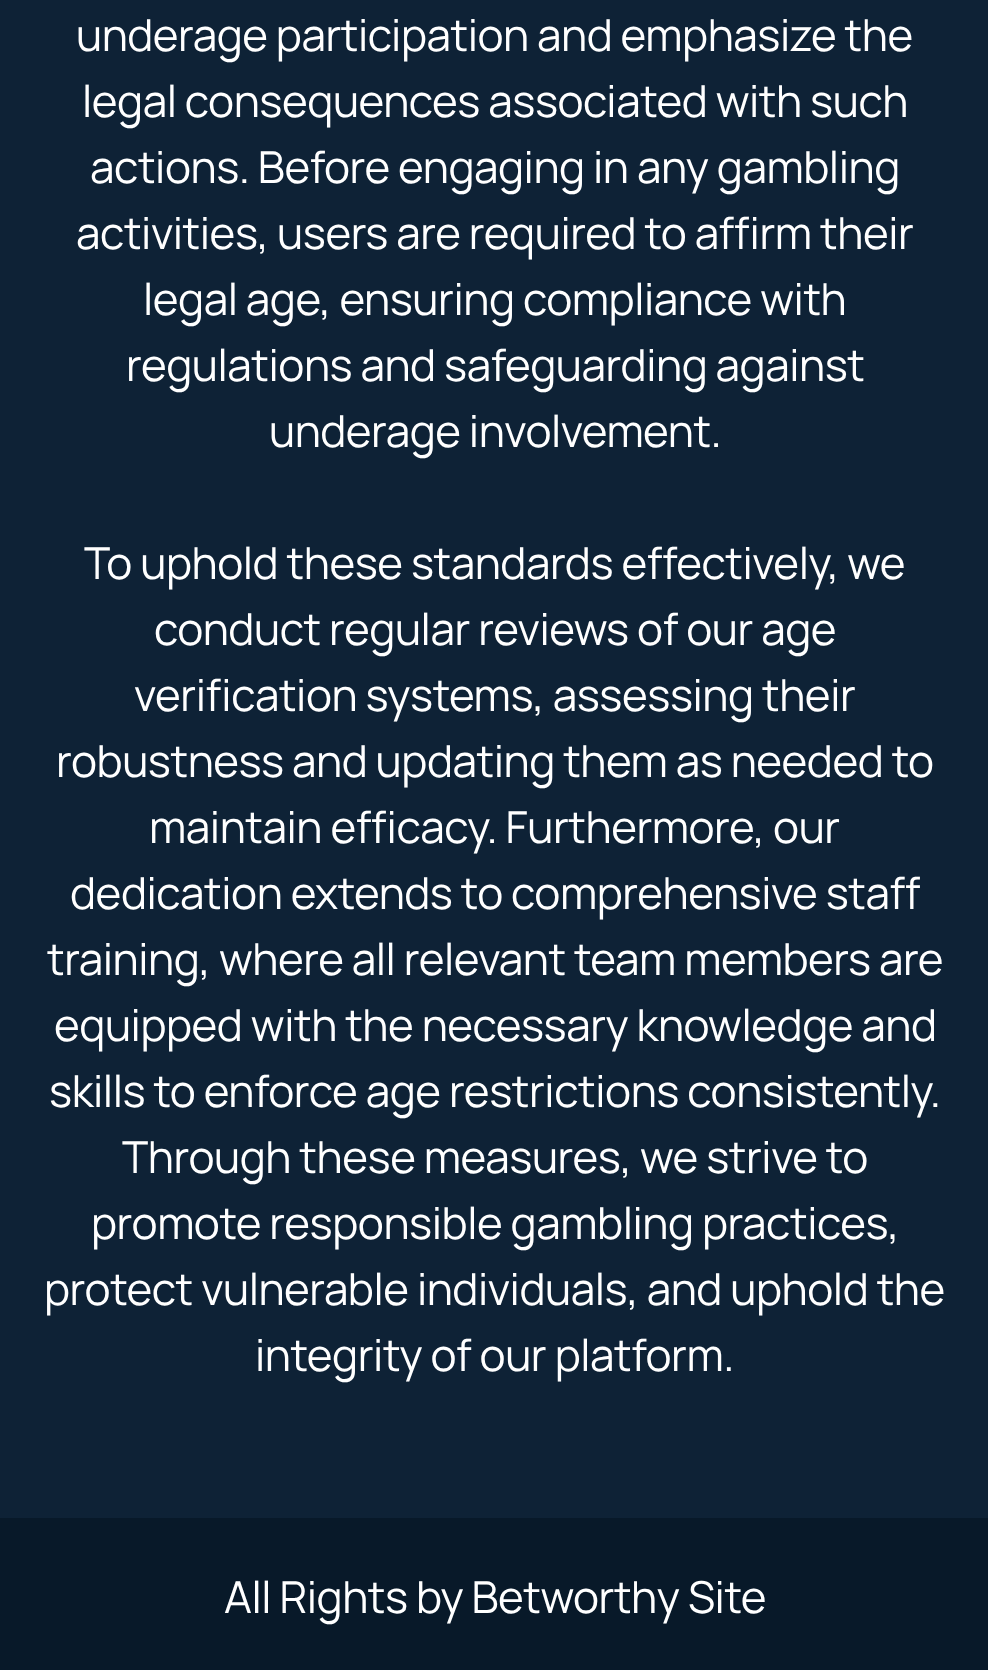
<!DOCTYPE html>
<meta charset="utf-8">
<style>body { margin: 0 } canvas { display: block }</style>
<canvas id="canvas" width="988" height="1670"></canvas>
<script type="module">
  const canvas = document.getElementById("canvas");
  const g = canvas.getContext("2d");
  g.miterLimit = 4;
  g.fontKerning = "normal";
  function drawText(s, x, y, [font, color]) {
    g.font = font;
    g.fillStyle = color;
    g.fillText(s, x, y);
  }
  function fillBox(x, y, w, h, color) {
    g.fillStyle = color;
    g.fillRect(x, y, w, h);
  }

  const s1 = ["44px Manrope", "#FFFFFF"];

  fillBox(0, 0, 988, 1670, "#0E2236");
  g.letterSpacing = "-0.45px";
  drawText("underage participation and emphasize the", 76, 51, s1);
  drawText("legal consequences associated with such", 82, 117, s1);
  drawText("actions. Before engaging in any gambling", 90, 183, s1);
  drawText("activities, users are required to affirm their", 76, 249, s1);
  drawText("legal age, ensuring compliance with", 143, 315, s1);
  drawText("regulations and safeguarding against", 126, 381, s1);
  drawText("underage involvement.", 269, 447, s1);
  drawText("To uphold these standards effectively, we", 84, 579, s1);
  drawText("conduct regular reviews of our age", 154, 645, s1);
  drawText("verification systems, assessing their", 134, 711, s1);
  drawText("robustness and updating them as needed to", 56, 777, s1);
  drawText("maintain efficacy. Furthermore, our", 149, 843, s1);
  drawText("dedication extends to comprehensive staff", 70, 909, s1);
  drawText("training, where all relevant team members are", 47, 975, s1);
  drawText("equipped with the necessary knowledge and", 54, 1041, s1);
  drawText("skills to enforce age restrictions consistently.", 49, 1107, s1);
  drawText("Through these measures, we strive to", 122, 1173, s1);
  drawText("promote responsible gambling practices,", 91, 1239, s1);
  drawText("protect vulnerable individuals, and uphold the", 44, 1305, s1);
  drawText("integrity of our platform.", 255, 1371, s1);
  fillBox(0, 1518, 988, 152, "#081929");
  drawText("All Rights by Betworthy Site", 224, 1613, s1);
</script>
